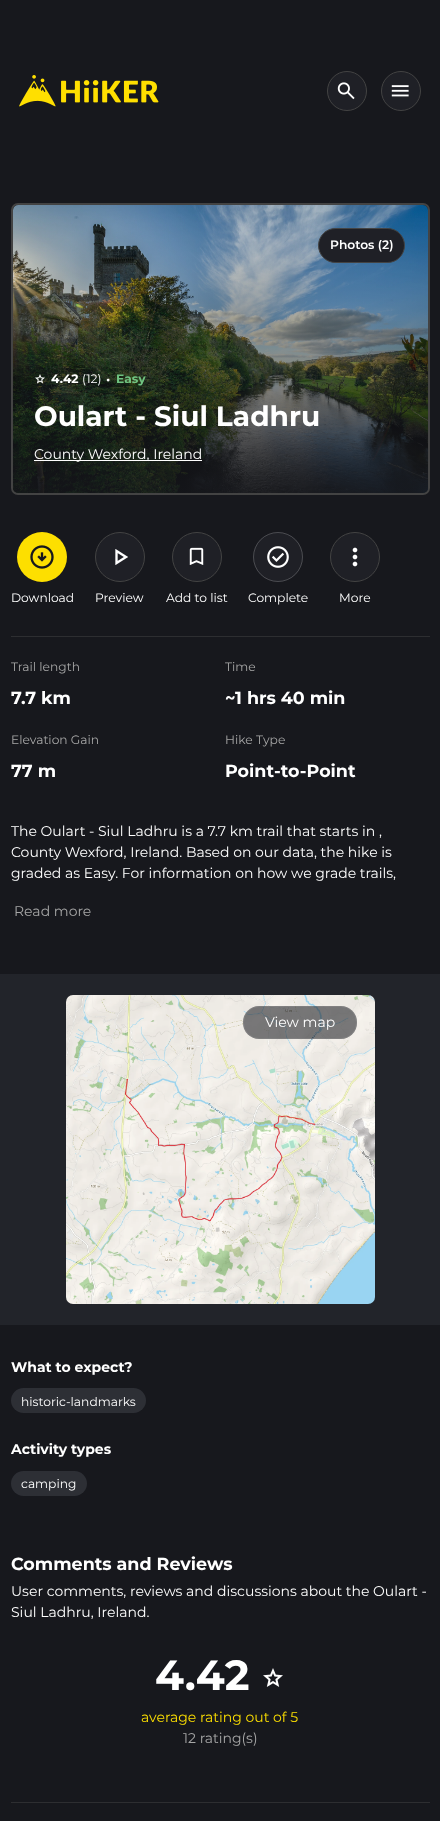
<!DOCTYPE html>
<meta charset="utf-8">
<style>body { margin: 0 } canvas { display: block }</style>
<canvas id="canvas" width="440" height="1821"></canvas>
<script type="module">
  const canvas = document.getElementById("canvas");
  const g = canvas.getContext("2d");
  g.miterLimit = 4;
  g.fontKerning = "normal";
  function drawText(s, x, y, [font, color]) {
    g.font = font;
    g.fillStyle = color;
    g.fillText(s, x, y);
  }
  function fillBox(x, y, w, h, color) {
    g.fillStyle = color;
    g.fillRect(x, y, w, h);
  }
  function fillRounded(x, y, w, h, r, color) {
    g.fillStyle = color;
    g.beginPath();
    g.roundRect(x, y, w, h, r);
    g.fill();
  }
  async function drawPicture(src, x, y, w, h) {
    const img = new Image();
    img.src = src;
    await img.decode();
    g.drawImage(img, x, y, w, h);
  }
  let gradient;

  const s1 = ["600 12.25px Montserrat", "#FFFFFF"];
  const s2 = ["bold 12.25px Montserrat", "#FFFFFF"];
  const s3 = ["12.25px Montserrat", "#FFFFFF"];
  const s4 = ["bold 14px Montserrat", "#FFFFFF"];
  const s5 = ["bold 12.25px Montserrat", "#70C381"];
  const s6 = ["bold 28px Montserrat", "#FFFFFF"];
  const s7 = ["14px Montserrat", "#FFFFFF"];
  const s8 = ["12.25px Montserrat", "#A6A6A6"];
  const s9 = ["bold 17.5px Montserrat", "#FFFFFF"];
  const s10 = ["14px Montserrat", "#A6A6A6"];
  const s11 = ["bold 42px Montserrat", "#FFFFFF"];
  const s12 = ["14px Montserrat", "#FDDF00"];

  fillBox(0, 0, 440, 1821, "#17181D");
  await drawPicture("pic1.png", 19, 75, 140, 32);
  g.fillStyle = "#1F2026";
  g.beginPath();
  g.arc(347, 91, 19.5, 0, Math.PI * 2);
  g.fill();
  g.strokeStyle = "#434343";
  g.stroke();
  await drawPicture("pic2.png", 337, 82, 18, 18);
  g.beginPath();
  g.arc(401, 91, 19.5, 0, Math.PI * 2);
  g.fill();
  g.stroke();
  await drawPicture("pic3.png", 391, 85, 18, 12);
  await drawPicture("pic4.png", 13, 205, 415, 288);
  g.beginPath();
  g.roundRect(12, 204, 417, 290, 6);
  g.lineWidth = 2;
  g.stroke();
  gradient = g.createLinearGradient(220, 205, 221, 493);
  gradient.addColorStop(0, "rgba(23, 24, 29, 0)");
  gradient.addColorStop(1, "rgba(23, 24, 29, 0.85)");
  g.fillStyle = gradient;
  g.beginPath();
  g.roundRect(13, 205, 415, 288, 5);
  g.fill();
  g.fillStyle = "#1F2026";
  g.beginPath();
  g.roundRect(318.5, 228.5, 86, 34, 17);
  g.fill();
  g.lineWidth = 1;
  g.stroke();
  drawText("Photos (2)", 330, 249, s1);
  await drawPicture("pic5.png", 35, 374, 10, 10);
  drawText("4.42", 51, 383, s2);
  drawText("(12)", 82, 383, s3);
  drawText("·", 106, 384, s4);
  drawText("Easy", 116, 383, s5);
  drawText("Oulart - Siul Ladhru", 34, 426, s6);
  fillBox(34, 460, 168, 1, "#FFFFFF");
  drawText("County Wexford, Ireland", 34, 459, s7);
  g.fillStyle = "#FDDF00";
  g.beginPath();
  g.arc(42, 557, 25, 0, Math.PI * 2);
  g.fill();
  await drawPicture("pic6.png", 30, 545, 24, 24);
  drawText("Download", 11, 602, s3);
  g.fillStyle = "#1F2026";
  g.beginPath();
  g.arc(120, 557, 24.5, 0, Math.PI * 2);
  g.fill();
  g.stroke();
  await drawPicture("pic7.png", 115, 549, 13, 16);
  drawText("Preview", 95, 602, s3);
  g.fillStyle = "#1F2026";
  g.beginPath();
  g.arc(197, 557, 24.5, 0, Math.PI * 2);
  g.fill();
  g.stroke();
  await drawPicture("pic8.png", 189, 547, 15, 18);
  drawText("Add to list", 166, 602, s3);
  g.fillStyle = "#1F2026";
  g.beginPath();
  g.arc(278, 557, 25, 0, Math.PI * 2);
  g.fill();
  g.beginPath();
  g.arc(278, 557, 24.5, 0, Math.PI * 2);
  g.strokeStyle = "rgba(255, 255, 255, 0.2)";
  g.stroke();
  await drawPicture("pic9.png", 267, 546, 22, 22);
  drawText("Complete", 248, 602, s3);
  g.fillStyle = "#1F2026";
  g.beginPath();
  g.arc(355, 557, 24.5, 0, Math.PI * 2);
  g.fill();
  g.strokeStyle = "#434343";
  g.stroke();
  await drawPicture("pic10.png", 352, 547, 6, 20);
  drawText("More", 339, 602, s3);
  fillBox(11, 636, 419, 1, "#2D2E31");
  drawText("Trail length", 11, 671, s8);
  drawText("7.7 km", 11, 704, s9);
  drawText("Time", 225, 671, s8);
  drawText("~1 hrs 40 min", 225, 704, s9);
  drawText("Elevation Gain", 11, 744, s8);
  drawText("77 m", 11, 777, s9);
  drawText("Hike Type", 225, 744, s8);
  drawText("Point-to-Point", 225, 777, s9);
  drawText("The Oulart - Siul Ladhru is a 7.7 km trail that starts in ,", 11, 836, s7);
  drawText("County Wexford, Ireland. Based on our data, the hike is", 11, 857, s7);
  drawText("graded as Easy. For information on how we grade trails,", 11, 878, s7);
  drawText("Read more", 14, 916, s10);
  fillBox(0, 974, 440, 351, "#22242A");
  await drawPicture("pic11.png", 66, 995, 309, 309);
  fillRounded(243, 1006, 114, 33, 16, "rgba(31, 32, 38, 0.58)");
  g.beginPath();
  g.roundRect(243.5, 1006.5, 113, 32, 15.5);
  g.strokeStyle = "rgba(255, 255, 255, 0.08)";
  g.stroke();
  drawText("View map", 265, 1027, s7);
  drawText("What to expect?", 11, 1372, s4);
  fillRounded(11, 1388, 135, 25, 12.5, "#2D2F35");
  drawText("historic-landmarks", 21, 1406, s3);
  drawText("Activity types", 11, 1454, s4);
  fillRounded(11, 1471, 76, 25, 12.5, "#2D2F35");
  drawText("camping", 21, 1488, s3);
  drawText("Comments and Reviews", 11, 1570, s9);
  drawText("User comments, reviews and discussions about the Oulart -", 11, 1596, s7);
  drawText("Siul Ladhru, Ireland.", 11, 1617, s7);
  drawText("4.42", 155, 1690, s11);
  await drawPicture("pic12.png", 263, 1668, 20, 19);
  drawText("average rating out of 5", 141, 1722, s12);
  drawText("12 rating(s)", 183, 1743, s10);
  fillBox(11, 1802, 419, 1, "#2D2E31");
</script>
